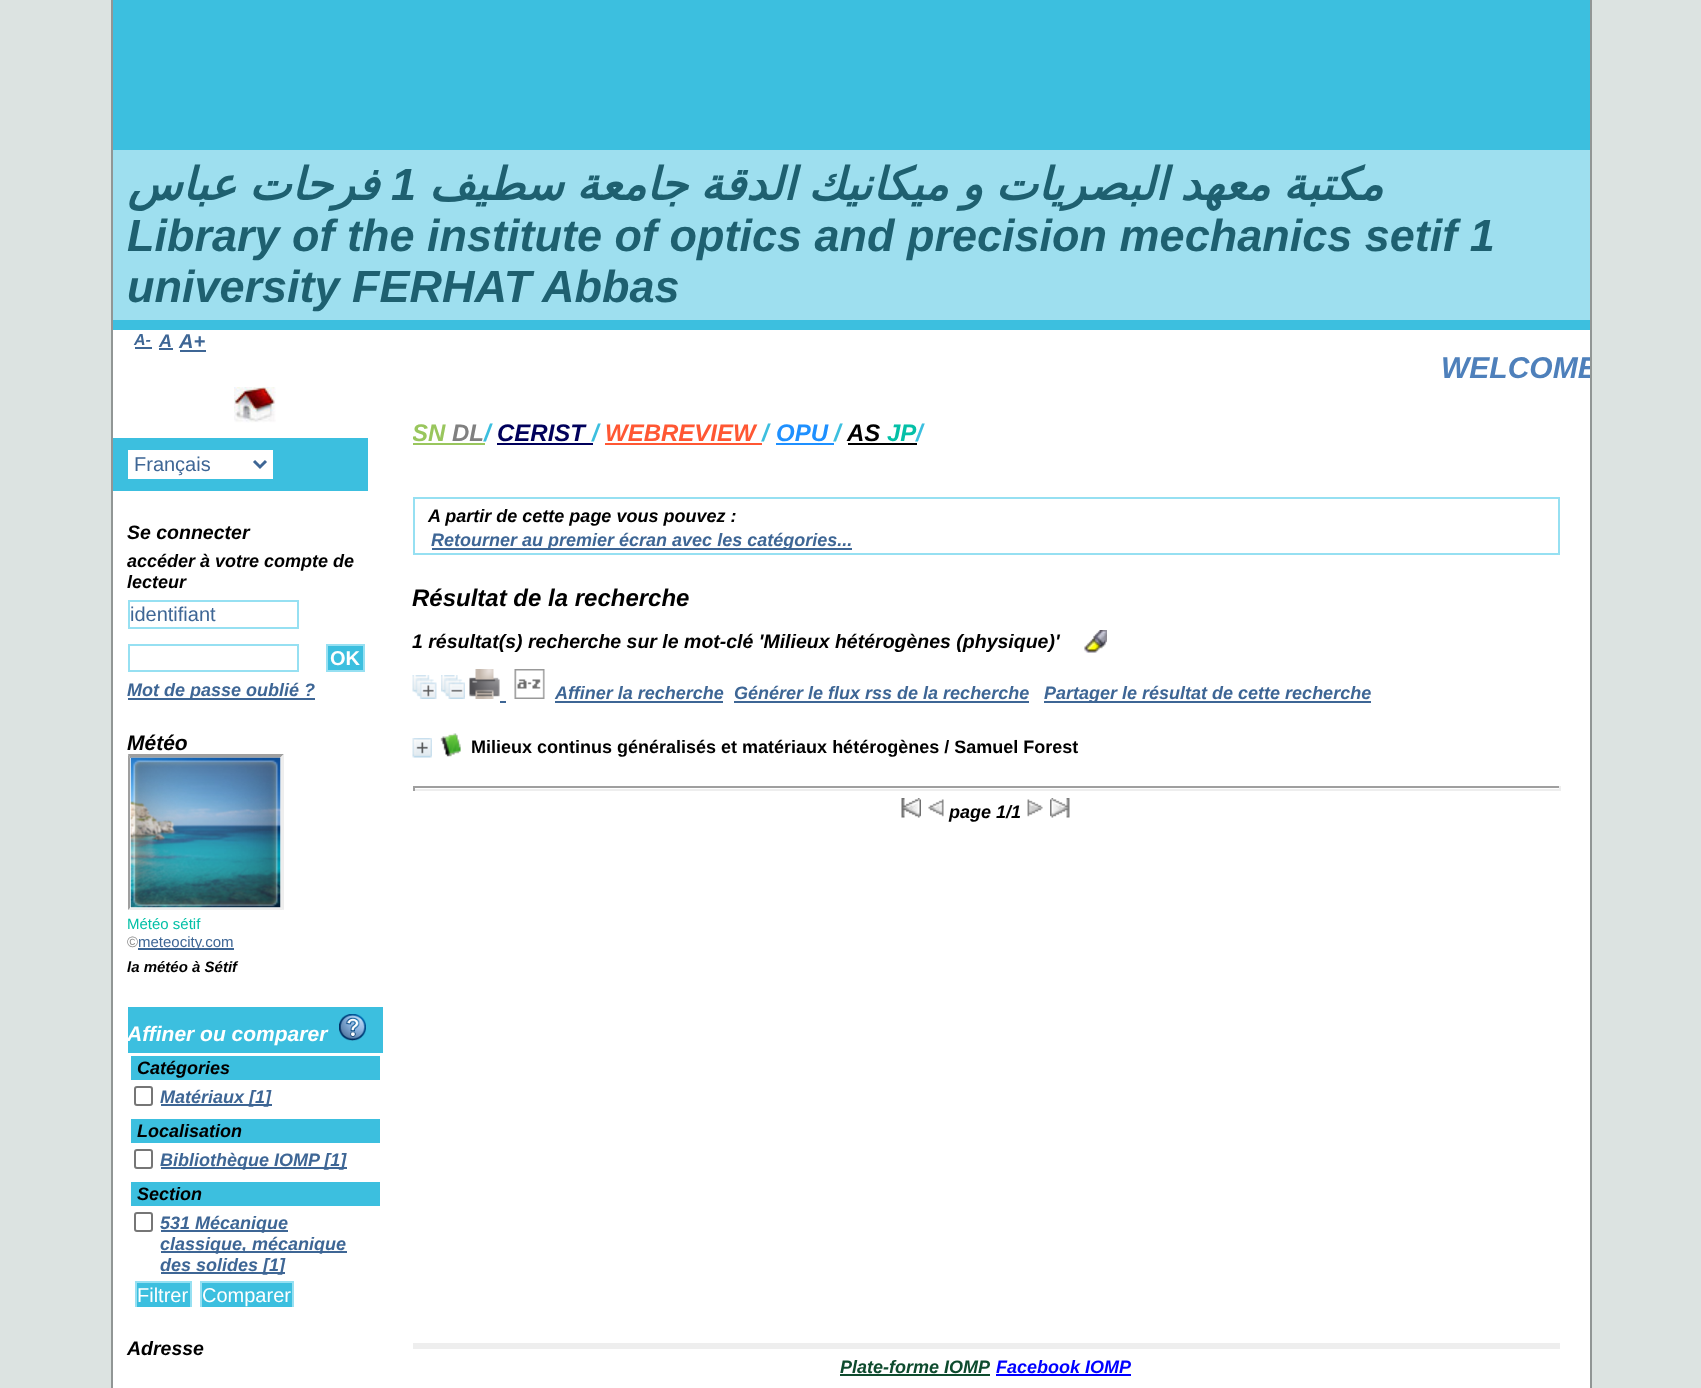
<!DOCTYPE html>
<meta charset="utf-8">
<style>body { margin: 0 } canvas { display: block }</style>
<canvas id="canvas" width="1701" height="1388"></canvas>
<script type="module">
  const canvas = document.getElementById("canvas");
  const g = canvas.getContext("2d");
  g.miterLimit = 4;
  g.fontKerning = "normal";
  function drawText(s, x, y, [font, color]) {
    g.font = font;
    g.fillStyle = color;
    g.fillText(s, x, y);
  }
  function fillBox(x, y, w, h, color) {
    g.fillStyle = color;
    g.fillRect(x, y, w, h);
  }
  async function drawPicture(src, x, y, w, h) {
    const img = new Image();
    img.src = src;
    await img.decode();
    g.drawImage(img, x, y, w, h);
  }

  const s1 = ["italic bold 45px DejaVu Sans", "#1E6070"];
  const s2 = ["italic bold 45px Liberation Sans", "#1E6070"];
  const s3 = ["italic bold 24px Liberation Sans", "#99C65D"];
  const s4 = ["italic bold 24px Liberation Sans", "#808080"];
  const s5 = ["italic bold 24px Liberation Sans", "#3CBFDF"];
  const s6 = ["italic bold 24px Liberation Sans", "#00005B"];
  const s7 = ["italic bold 24px Liberation Sans", "#FF5733"];
  const s8 = ["italic bold 24px Liberation Sans", "#1E90FF"];
  const s9 = ["italic bold 24px Liberation Sans", "#000000"];
  const s10 = ["italic bold 24px Liberation Sans", "#04C0A7"];
  const s11 = ["italic bold 18px Liberation Sans", "#000000"];
  const s12 = ["italic bold 18px Liberation Sans", "#3E6695"];
  const s13 = ["italic bold 19.5px Liberation Sans", "#000000"];
  const s14 = ["bold 18px Liberation Sans", "#000000"];
  const s15 = ["italic bold 18px Liberation Sans", "#0E4B2E"];
  const s16 = ["italic bold 18px Liberation Sans", "#0000FF"];
  const s17 = ["italic bold 16px Liberation Sans", "#3E6695"];
  const s18 = ["italic bold 20px Liberation Sans", "#3E6695"];
  const s19 = ["20px Liberation Sans", "#3E6695"];
  const s20 = ["bold 20px Liberation Sans", "#FFFFFF"];
  const s21 = ["italic bold 21px Liberation Sans", "#000000"];
  const s22 = ["15px Liberation Sans", "#04C0A7"];
  const s23 = ["15px Liberation Sans", "#868686"];
  const s24 = ["15px Liberation Sans", "#3E6695"];
  const s25 = ["italic bold 15px Liberation Sans", "#000000"];
  const s26 = ["italic bold 21px Liberation Sans", "#FFFFFF"];
  const s27 = ["20px Liberation Sans", "#FFFFFF"];
  const s28 = ["italic bold 30px Liberation Sans", "#4E80BB"];

  fillBox(0, 0, 1701, 1388, "#DCE3E1");
  g.strokeStyle = "#919695";
  g.lineWidth = 2;
  g.strokeRect(112, 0, 1479, 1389);
  fillBox(113, 330, 1477, 1058, "#FFFFFF");
  fillBox(113, 0, 1477, 330, "#3CBFDF");
  fillBox(113, 150, 1477, 170, "#9EDFEF");
  g.wordSpacing = "-1.75px";
  g.direction = "rtl";
  drawText("فرحات عباس", 379, 200, s1);
  g.wordSpacing = "0px";
  g.direction = "ltr";
  drawText("1", 391, 200, s2);
  g.wordSpacing = "-1.75px";
  g.direction = "rtl";
  drawText("مكتبة معهد البصريات و ميكانيك الدقة جامعة سطيف", 1383, 200, s1);
  g.wordSpacing = "0px";
  g.direction = "ltr";
  drawText("Library of the institute of optics and precision mechanics setif 1", 127, 251, s2);
  drawText("university FERHAT Abbas", 127, 302, s2);
  g.save();
  g.beginPath();
  g.rect(413, 420, 1147, 54);
  g.clip();
  drawText("SN", 412, 441, s3);
  g.restore();
  fillBox(413, 443, 72, 2, "#99C65D");
  drawText("DL", 452, 441, s4);
  drawText("/", 484, 441, s5);
  drawText("CERIST", 497, 441, s6);
  fillBox(497, 443, 96, 2, "#00005B");
  drawText("/", 592, 441, s5);
  drawText("WEBREVIEW", 605, 441, s7);
  fillBox(605, 443, 157, 2, "#FF5733");
  drawText("/", 762, 441, s5);
  drawText("OPU", 776, 441, s8);
  fillBox(776, 443, 58, 2, "#1E90FF");
  drawText("/", 834, 441, s5);
  drawText("AS", 847, 441, s9);
  fillBox(848, 443, 69, 2, "#000000");
  drawText("JP", 887, 441, s10);
  drawText("/", 916, 441, s5);
  g.strokeStyle = "#96E0F2";
  g.strokeRect(414, 498, 1145, 56);
  drawText("A partir de cette page vous pouvez :", 428, 522, s11);
  fillBox(432, 548, 420, 2, "#3E6695");
  drawText("Retourner au premier écran avec les catégories...", 431, 546, s12);
  drawText("Résultat de la recherche", 412, 606, s9);
  drawText("1 résultat(s) recherche sur le mot-clé 'Milieux hétérogènes (physique)'", 412, 648, s13);
  await drawPicture("pic1.png", 1084, 630, 23, 23);
  await drawPicture("pic2.png", 412, 675, 25, 24);
  await drawPicture("pic3.png", 441, 675, 24, 24);
  await drawPicture("pic4.png", 469, 669, 31, 30);
  fillBox(500, 701, 6, 2, "#3E6695");
  await drawPicture("pic5.png", 514, 669, 31, 30);
  drawText("Affiner la recherche", 555, 699, s12);
  fillBox(555, 701, 168, 2, "#3E6695");
  drawText("Générer le flux rss de la recherche", 734, 699, s12);
  fillBox(734, 701, 295, 2, "#3E6695");
  fillBox(1044, 701, 327, 2, "#3E6695");
  drawText("Partager le résultat de cette recherche", 1044, 699, s12);
  await drawPicture("pic6.png", 412, 738, 20, 20);
  await drawPicture("pic7.png", 440, 733, 21, 24);
  drawText("Milieux continus généralisés et matériaux hétérogènes / Samuel Forest", 471, 753, s14);
  fillBox(413, 786, 1147, 2, "#9F9F9F");
  fillBox(1559, 786, 2, 5, "#EEEEEE");
  fillBox(413, 789, 1147, 2, "#EEEEEE");
  fillBox(413, 786, 2, 5, "#9F9F9F");
  await drawPicture("pic8.png", 901, 798, 20, 20);
  await drawPicture("pic9.png", 928, 799, 16, 18);
  drawText("page 1/1", 949, 818, s11);
  await drawPicture("pic10.png", 1027, 799, 16, 18);
  await drawPicture("pic11.png", 1050, 798, 20, 20);
  fillBox(413, 1343, 1147, 6, "#EEEEEE");
  drawText("Plate-forme IOMP", 840, 1373, s15);
  fillBox(840, 1374, 150, 2, "#0E4B2E");
  drawText("Facebook IOMP", 996, 1373, s16);
  fillBox(996, 1374, 135, 2, "#0000FF");
  drawText("A-", 134, 345, s17);
  fillBox(135, 347, 17, 2, "#3E6695");
  drawText("A", 159, 347, s12);
  fillBox(159, 348, 14, 2, "#3E6695");
  drawText("A+", 179, 348, s18);
  fillBox(180, 350, 26, 2, "#3E6695");
  await drawPicture("pic12.png", 234, 387, 42, 36);
  fillBox(113, 438, 255, 53, "#3CBFDF");
  fillBox(128, 450, 145, 29, "#FFFFFF");
  g.beginPath();
  g.moveTo(254, 461);
  g.lineTo(260, 467);
  g.lineTo(266, 461);
  g.strokeStyle = "#3E6695";
  g.lineWidth = 3;
  g.stroke();
  drawText("Français", 134, 471, s19);
  drawText("Se connecter", 127, 539, s13);
  drawText("accéder à votre compte de", 127, 567, s11);
  drawText("lecteur", 127, 588, s11);
  g.strokeStyle = "#96E0F2";
  g.lineWidth = 2;
  g.strokeRect(129, 601, 169, 27);
  drawText("identifiant", 130, 621, s19);
  g.strokeRect(129, 645, 169, 26);
  g.fillStyle = "#3CBFDF";
  g.beginPath();
  g.rect(327, 645, 37, 26);
  g.fill();
  g.stroke();
  drawText("OK", 330, 665, s20);
  fillBox(128, 698, 187, 2, "#3E6695");
  drawText("Mot de passe oublié ?", 127, 696, s12);
  drawText("Météo", 127, 750, s21);
  g.fillStyle = "#9F9F9F";
  g.beginPath();
  g.moveTo(128, 754);
  g.lineTo(284, 754);
  g.lineTo(280, 758);
  g.lineTo(130, 758);
  g.closePath();
  g.fill();
  g.fillStyle = "#EEEEEE";
  g.beginPath();
  g.moveTo(284, 754);
  g.lineTo(284, 910);
  g.lineTo(280, 908);
  g.lineTo(280, 758);
  g.closePath();
  g.fill();
  g.beginPath();
  g.moveTo(284, 910);
  g.lineTo(128, 910);
  g.lineTo(130, 908);
  g.lineTo(280, 908);
  g.closePath();
  g.fill();
  g.fillStyle = "#9F9F9F";
  g.beginPath();
  g.moveTo(128, 910);
  g.lineTo(128, 754);
  g.lineTo(130, 758);
  g.lineTo(130, 908);
  g.closePath();
  g.fill();
  await drawPicture("pic13.png", 130, 757, 151, 151);
  drawText("Météo sétif", 127, 929, s22);
  drawText("©", 127, 947, s23);
  fillBox(138, 948, 96, 2, "#3E6695");
  drawText("meteocity.com", 138, 947, s24);
  drawText("la météo à Sétif", 127, 972, s25);
  fillBox(128, 1007, 255, 46, "#3CBFDF");
  g.save();
  g.beginPath();
  g.rect(128, 1007, 255, 300);
  g.clip();
  drawText("Affiner ou comparer", 127, 1041, s26);
  g.restore();
  await drawPicture("pic14.png", 339, 1014, 27, 27);
  fillBox(131, 1056, 249, 24, "#3CBFDF");
  drawText("Catégories", 137, 1074, s11);
  g.beginPath();
  g.roundRect(135, 1087, 17, 18, 2);
  g.strokeStyle = "#767676";
  g.stroke();
  fillBox(161, 1104, 111, 2, "#3E6695");
  drawText("Matériaux [1]", 160, 1103, s12);
  fillBox(131, 1119, 249, 24, "#3CBFDF");
  drawText("Localisation", 137, 1137, s11);
  g.beginPath();
  g.roundRect(135, 1150, 17, 18, 2);
  g.stroke();
  fillBox(161, 1167, 186, 2, "#3E6695");
  drawText("Bibliothèque IOMP [1]", 160, 1166, s12);
  fillBox(131, 1182, 249, 24, "#3CBFDF");
  drawText("Section", 137, 1200, s11);
  g.beginPath();
  g.roundRect(135, 1213, 17, 18, 2);
  g.stroke();
  fillBox(161, 1230, 127, 2, "#3E6695");
  drawText("531 Mécanique", 160, 1229, s12);
  fillBox(161, 1251, 186, 2, "#3E6695");
  drawText("classique, mécanique", 160, 1250, s12);
  fillBox(161, 1272, 124, 2, "#3E6695");
  drawText("des solides [1]", 160, 1271, s12);
  fillBox(137, 1283, 53, 24, "#3CBFDF");
  g.save();
  g.beginPath();
  g.rect(128, 1007, 255, 300);
  g.clip();
  g.strokeStyle = "#96E0F2";
  g.strokeRect(136, 1282, 55, 27);
  g.restore();
  drawText("Filtrer", 137, 1302, s27);
  fillBox(202, 1283, 90, 24, "#3CBFDF");
  g.save();
  g.beginPath();
  g.rect(128, 1007, 255, 300);
  g.clip();
  g.strokeStyle = "#96E0F2";
  g.strokeRect(201, 1282, 92, 27);
  g.restore();
  drawText("Comparer", 202, 1302, s27);
  drawText("Adresse", 127, 1355, s13);
  g.save();
  g.beginPath();
  g.rect(413, 330, 1177, 56);
  g.clip();
  drawText("WELCOME", 1441, 378, s28);
  g.restore();
</script>
